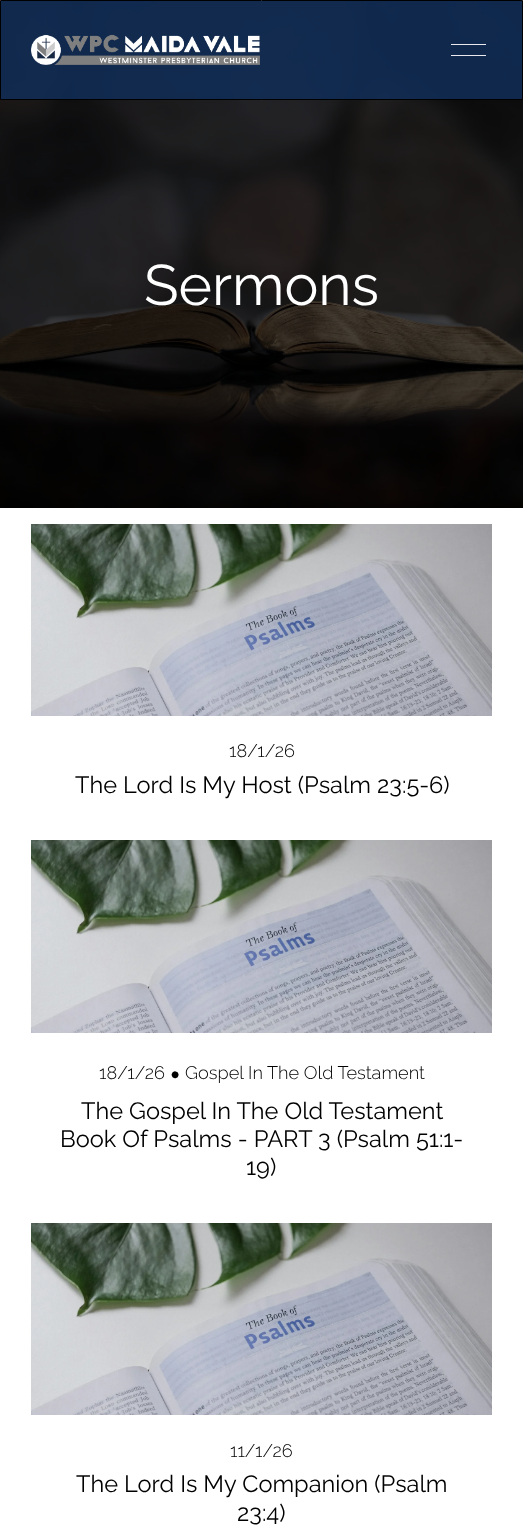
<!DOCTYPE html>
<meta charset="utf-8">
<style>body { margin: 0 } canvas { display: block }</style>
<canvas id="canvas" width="523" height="1539"></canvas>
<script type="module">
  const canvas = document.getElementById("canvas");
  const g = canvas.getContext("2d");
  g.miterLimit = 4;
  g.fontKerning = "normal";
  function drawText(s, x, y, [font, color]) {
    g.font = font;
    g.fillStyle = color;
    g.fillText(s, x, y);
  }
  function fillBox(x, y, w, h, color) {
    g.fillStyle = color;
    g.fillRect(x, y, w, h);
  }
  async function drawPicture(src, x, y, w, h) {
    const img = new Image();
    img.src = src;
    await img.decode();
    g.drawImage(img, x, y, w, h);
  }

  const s1 = ["57px Raleway", "#FFFFFF"];
  const s2 = ["300 18.2px Raleway", "#000000"];
  const s3 = ["23.6px Raleway", "#000000"];
  const s4 = ["18.2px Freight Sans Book", "#000000"];

  fillBox(0, 0, 523, 1539, "#FFFFFF");
  await drawPicture("pic2.png", 0, 1, 523, 507);
  g.fillStyle = "rgba(16, 45, 86, 0.87)";
  g.beginPath();
  g.rect(0.5, 0.5, 522, 99);
  g.fill();
  g.strokeStyle = "#000000";
  g.stroke();
  await drawPicture("pic1.png", 31, 34, 229, 31);
  fillBox(451, 44, 35, 1, "#EAEAEE");
  fillBox(451, 55, 35, 1, "#EAEAEE");
  drawText("Sermons", 144, 305, s1);
  await drawPicture("pic3.png", 31, 524, 461, 192);
  drawText("18/1/26", 229, 757, s2);
  drawText("The Lord Is My Host (Psalm 23:5-6)", 75, 793, s3);
  await drawPicture("pic4.png", 31, 840, 461, 193);
  drawText("18/1/26", 99, 1079, s2);
  drawText("•", 171, 1079, s4);
  drawText("Gospel In The Old Testament", 185, 1079, s2);
  drawText("The Gospel In The Old Testament", 81, 1119, s3);
  drawText("Book Of Psalms - PART 3 (Psalm 51:1-", 60, 1147, s3);
  drawText("19)", 246, 1175, s3);
  await drawPicture("pic3.png", 31, 1223, 461, 192);
  drawText("11/1/26", 230, 1457, s2);
  drawText("The Lord Is My Companion (Psalm", 76, 1492, s3);
  drawText("23:4)", 237, 1521, s3);
</script>
